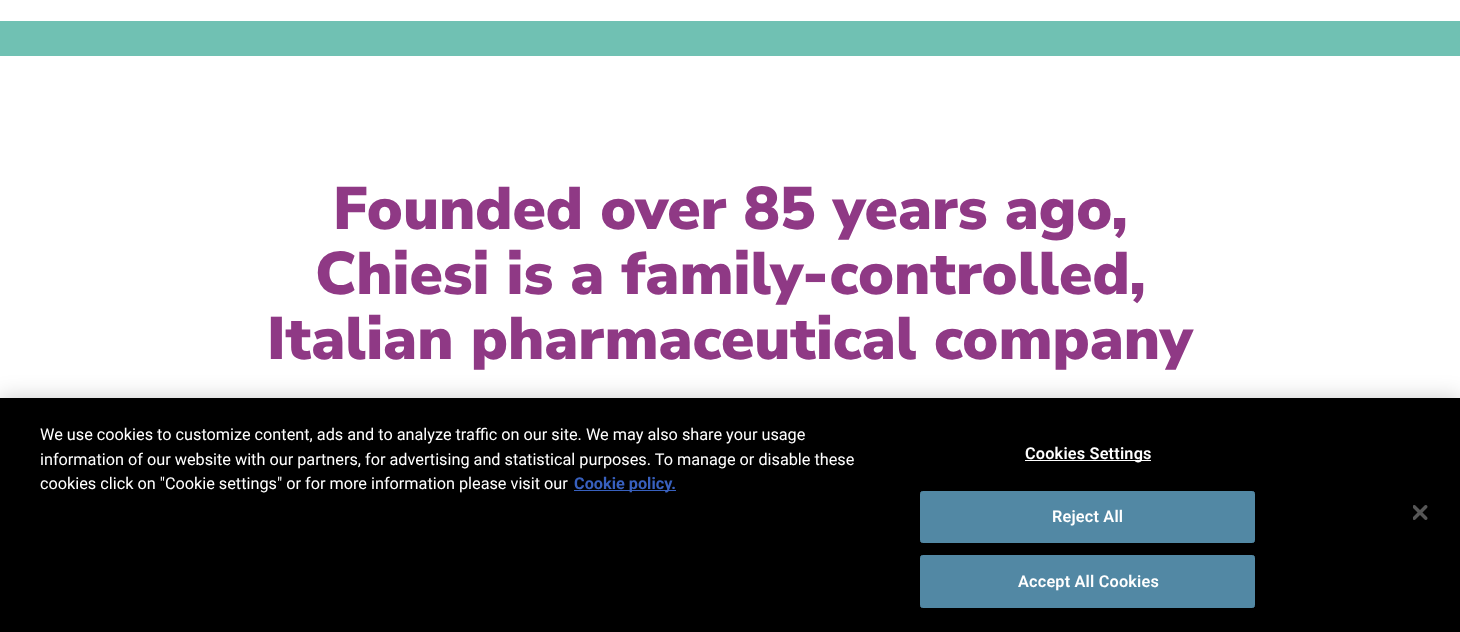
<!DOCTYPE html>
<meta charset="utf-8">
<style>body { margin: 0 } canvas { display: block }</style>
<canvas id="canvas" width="1460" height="632"></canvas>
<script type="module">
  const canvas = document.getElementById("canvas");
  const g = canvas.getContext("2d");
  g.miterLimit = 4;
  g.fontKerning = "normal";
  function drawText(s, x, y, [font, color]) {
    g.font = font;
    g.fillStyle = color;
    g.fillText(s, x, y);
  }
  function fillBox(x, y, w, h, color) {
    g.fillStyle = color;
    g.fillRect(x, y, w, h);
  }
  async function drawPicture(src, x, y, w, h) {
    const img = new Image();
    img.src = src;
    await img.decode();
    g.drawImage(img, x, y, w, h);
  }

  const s1 = ["900 60px Nunito Sans", "#8F3985"];
  const s2 = ["16.25px Roboto", "#FFFFFF"];
  const s3 = ["bold 16.25px Roboto", "#3860BE"];
  const s4 = ["600 16.25px Roboto", "#FFFFFF"];

  fillBox(0, 0, 1460, 632, "#FFFFFF");
  fillBox(0, 21, 1460, 35, "#70C1B3");
  drawText("Founded over 85 years ago,", 333, 229, s1);
  drawText("Chiesi is a family-controlled,", 315, 294, s1);
  drawText("Italian pharmaceutical company", 267, 359, s1);
  g.fillStyle = "rgba(0, 0, 0, 0.2)";
  g.filter = "blur(11px)";
  g.beginPath();
  g.rect(0, 398, 1460, 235);
  g.fill();
  g.filter = "none";
  fillBox(0, 398, 1460, 234, "#000000");
  drawText("We use cookies to customize content, ads and to analyze traffic on our site. We may also share your usage", 40, 440, s2);
  drawText("information of our website with our partners, for advertising and statistical purposes. To manage or disable these", 40, 465, s2);
  drawText("cookies click on \"Cookie settings\" or for more information please visit our", 40, 489, s2);
  fillBox(574, 490, 102, 1, "#3860BE");
  drawText("Cookie policy.", 574, 489, s3);
  fillBox(1025, 460, 126, 1, "#FFFFFF");
  g.letterSpacing = "0.2px";
  drawText("Cookies Settings", 1025, 459, s4);
  g.fillStyle = "#5288A4";
  g.beginPath();
  g.roundRect(920.5, 491.5, 334, 51, 2);
  g.fill();
  g.strokeStyle = "#5288A4";
  g.stroke();
  drawText("Reject All", 1052, 522, s4);
  g.fillStyle = "#5288A4";
  g.beginPath();
  g.roundRect(920.5, 555.5, 334, 52, 2);
  g.fill();
  g.stroke();
  drawText("Accept All Cookies", 1018, 587, s4);
  await drawPicture("pic1.png", 1413, 505, 15, 15);
</script>
